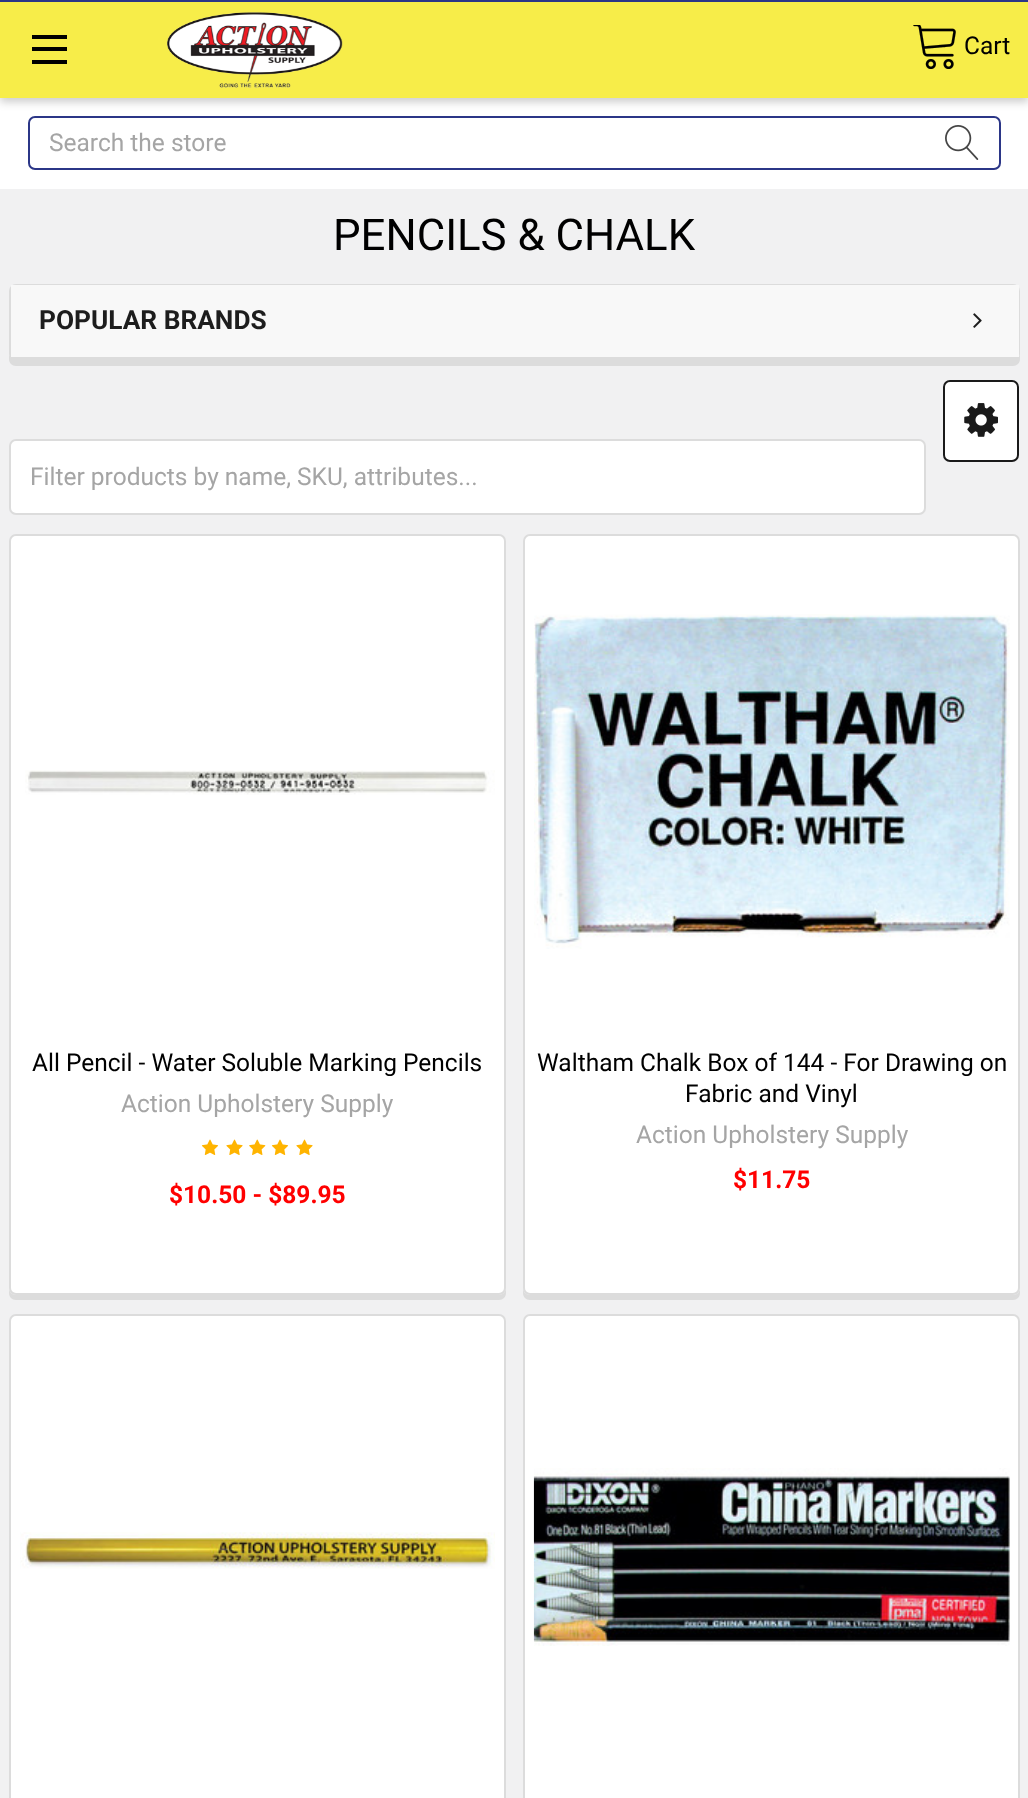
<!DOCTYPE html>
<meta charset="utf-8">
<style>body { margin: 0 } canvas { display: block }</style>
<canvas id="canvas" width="1028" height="1798"></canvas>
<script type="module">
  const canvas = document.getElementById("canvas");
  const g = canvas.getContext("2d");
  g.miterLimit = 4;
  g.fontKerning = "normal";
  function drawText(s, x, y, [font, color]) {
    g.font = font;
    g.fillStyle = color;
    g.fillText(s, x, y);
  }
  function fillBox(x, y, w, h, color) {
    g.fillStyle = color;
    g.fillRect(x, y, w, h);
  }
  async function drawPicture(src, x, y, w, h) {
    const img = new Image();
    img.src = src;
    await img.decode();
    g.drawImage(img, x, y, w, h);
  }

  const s1 = ["24.5px Roboto", "#000000"];
  const s2 = ["24.5px Roboto", "#A5A5A5"];
  const s3 = ["43.75px Roboto", "#000000"];
  const s4 = ["bold 26.25px Roboto", "#1D1D1D"];
  const s5 = ["bold 24.5px Roboto", "#FF0000"];

  fillBox(0, 0, 1028, 1798, "#F1F1F2");
  fillBox(0, 98, 1028, 91, "#FFFFFF");
  g.beginPath();
  g.roundRect(29, 117, 971, 52, 6);
  g.strokeStyle = "#2B3687";
  g.lineWidth = 2;
  g.stroke();
  g.fillStyle = "rgba(0, 0, 0, 0.2)";
  g.filter = "blur(4.5px)";
  g.beginPath();
  g.rect(0, 4, 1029, 98);
  g.fill();
  g.filter = "none";
  fillBox(0, 2, 1028, 96, "#F7ED49");
  fillBox(0, 0, 1028, 2, "#2B3687");
  fillBox(32, 47, 35, 4, "#000000");
  fillBox(32, 35, 35, 4, "#000000");
  fillBox(32, 60, 35, 4, "#000000");
  await drawPicture("pic1.png", 167, 12, 176, 76);
  await drawPicture("pic2.png", 913, 25, 43, 44);
  drawText("Cart", 964, 54, s1);
  drawText("Search the store", 49, 151, s2);
  await drawPicture("pic3.png", 945, 125, 34, 35);
  drawText("PENCILS & CHALK", 333, 250, s3);
  g.fillStyle = "#DCDCDC";
  g.beginPath();
  g.moveTo(9, 355);
  g.lineTo(9, 359);
  g.bezierCurveTo(9, 363, 12, 366, 16, 366);
  g.lineTo(1013, 366);
  g.bezierCurveTo(1017, 366, 1020, 363, 1020, 359);
  g.lineTo(1020, 355);
  g.bezierCurveTo(1019, 358, 1016, 360, 1013, 360);
  g.lineTo(16, 360);
  g.bezierCurveTo(13, 360, 10, 358, 9, 355);
  g.closePath();
  g.fill();
  g.beginPath();
  g.roundRect(10, 285, 1009, 75, 6);
  g.strokeStyle = "#DCDCDC";
  g.stroke();
  fillBox(11, 285, 1008, 72, "#F8F8F8");
  fillBox(11, 357, 1008, 2, "#DCDCDC");
  drawText("POPULAR BRANDS", 39, 329, s4);
  await drawPicture("pic4.png", 973, 313, 9, 15);
  g.fillStyle = "#FFFFFF";
  g.beginPath();
  g.roundRect(944, 381, 74, 80, 6);
  g.fill();
  g.strokeStyle = "#1A1A1A";
  g.stroke();
  await drawPicture("pic5.png", 964, 403, 34, 34);
  g.beginPath();
  g.roundRect(10, 440, 915, 74, 6);
  g.fill();
  g.strokeStyle = "#DCDCDC";
  g.stroke();
  drawText("Filter products by name, SKU, attributes...", 30, 485, s2);
  g.fillStyle = "#DCDCDC";
  g.beginPath();
  g.moveTo(9, 1290);
  g.lineTo(9, 1293);
  g.bezierCurveTo(9, 1297, 12, 1300, 16, 1300);
  g.lineTo(499, 1300);
  g.bezierCurveTo(503, 1300, 506, 1297, 506, 1293);
  g.lineTo(506, 544);
  g.lineTo(506, 1288);
  g.bezierCurveTo(506, 1292, 503, 1295, 499, 1295);
  g.lineTo(16, 1295);
  g.bezierCurveTo(13, 1295, 10, 1293, 9, 1290);
  g.closePath();
  g.fill();
  g.fillStyle = "#FFFFFF";
  g.beginPath();
  g.roundRect(10, 535, 495, 759, 6);
  g.fill();
  g.stroke();
  await drawPicture("pic6.png", 25, 770, 470, 25);
  drawText("All Pencil - Water Soluble Marking Pencils", 32, 1071, s1);
  drawText("Action Upholstery Supply", 121, 1112, s2);
  await drawPicture("pic7.png", 201, 1139, 18, 16);
  await drawPicture("pic8.png", 226, 1139, 17, 16);
  await drawPicture("pic9.png", 249, 1139, 17, 16);
  await drawPicture("pic7.png", 271, 1139, 18, 16);
  await drawPicture("pic8.png", 296, 1139, 17, 16);
  drawText("$10.50 - $89.95", 169, 1203, s5);
  g.fillStyle = "#DCDCDC";
  g.beginPath();
  g.moveTo(523, 544);
  g.lineTo(523, 1293);
  g.bezierCurveTo(523, 1297, 526, 1300, 530, 1300);
  g.lineTo(1013, 1300);
  g.bezierCurveTo(1017, 1300, 1020, 1297, 1020, 1293);
  g.lineTo(1020, 1290);
  g.bezierCurveTo(1019, 1293, 1016, 1295, 1013, 1295);
  g.lineTo(530, 1295);
  g.bezierCurveTo(526, 1295, 523, 1292, 523, 1288);
  g.closePath();
  g.fill();
  g.fillStyle = "#FFFFFF";
  g.beginPath();
  g.roundRect(524, 535, 495, 759, 6);
  g.fill();
  g.stroke();
  await drawPicture("pic10.png", 534, 614, 476, 335);
  drawText("Waltham Chalk Box of 144 - For Drawing on", 537, 1071, s1);
  drawText("Fabric and Vinyl", 685, 1102, s1);
  drawText("Action Upholstery Supply", 636, 1143, s2);
  drawText("$11.75", 733, 1188, s5);
  g.fillStyle = "#FFFFFF";
  g.beginPath();
  g.roundRect(10, 1315, 495, 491, 6);
  g.fill();
  g.stroke();
  await drawPicture("pic11.png", 20, 1532, 475, 37);
  g.beginPath();
  g.roundRect(524, 1315, 495, 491, 6);
  g.fill();
  g.stroke();
  await drawPicture("pic12.png", 533, 1468, 477, 178);
</script>
